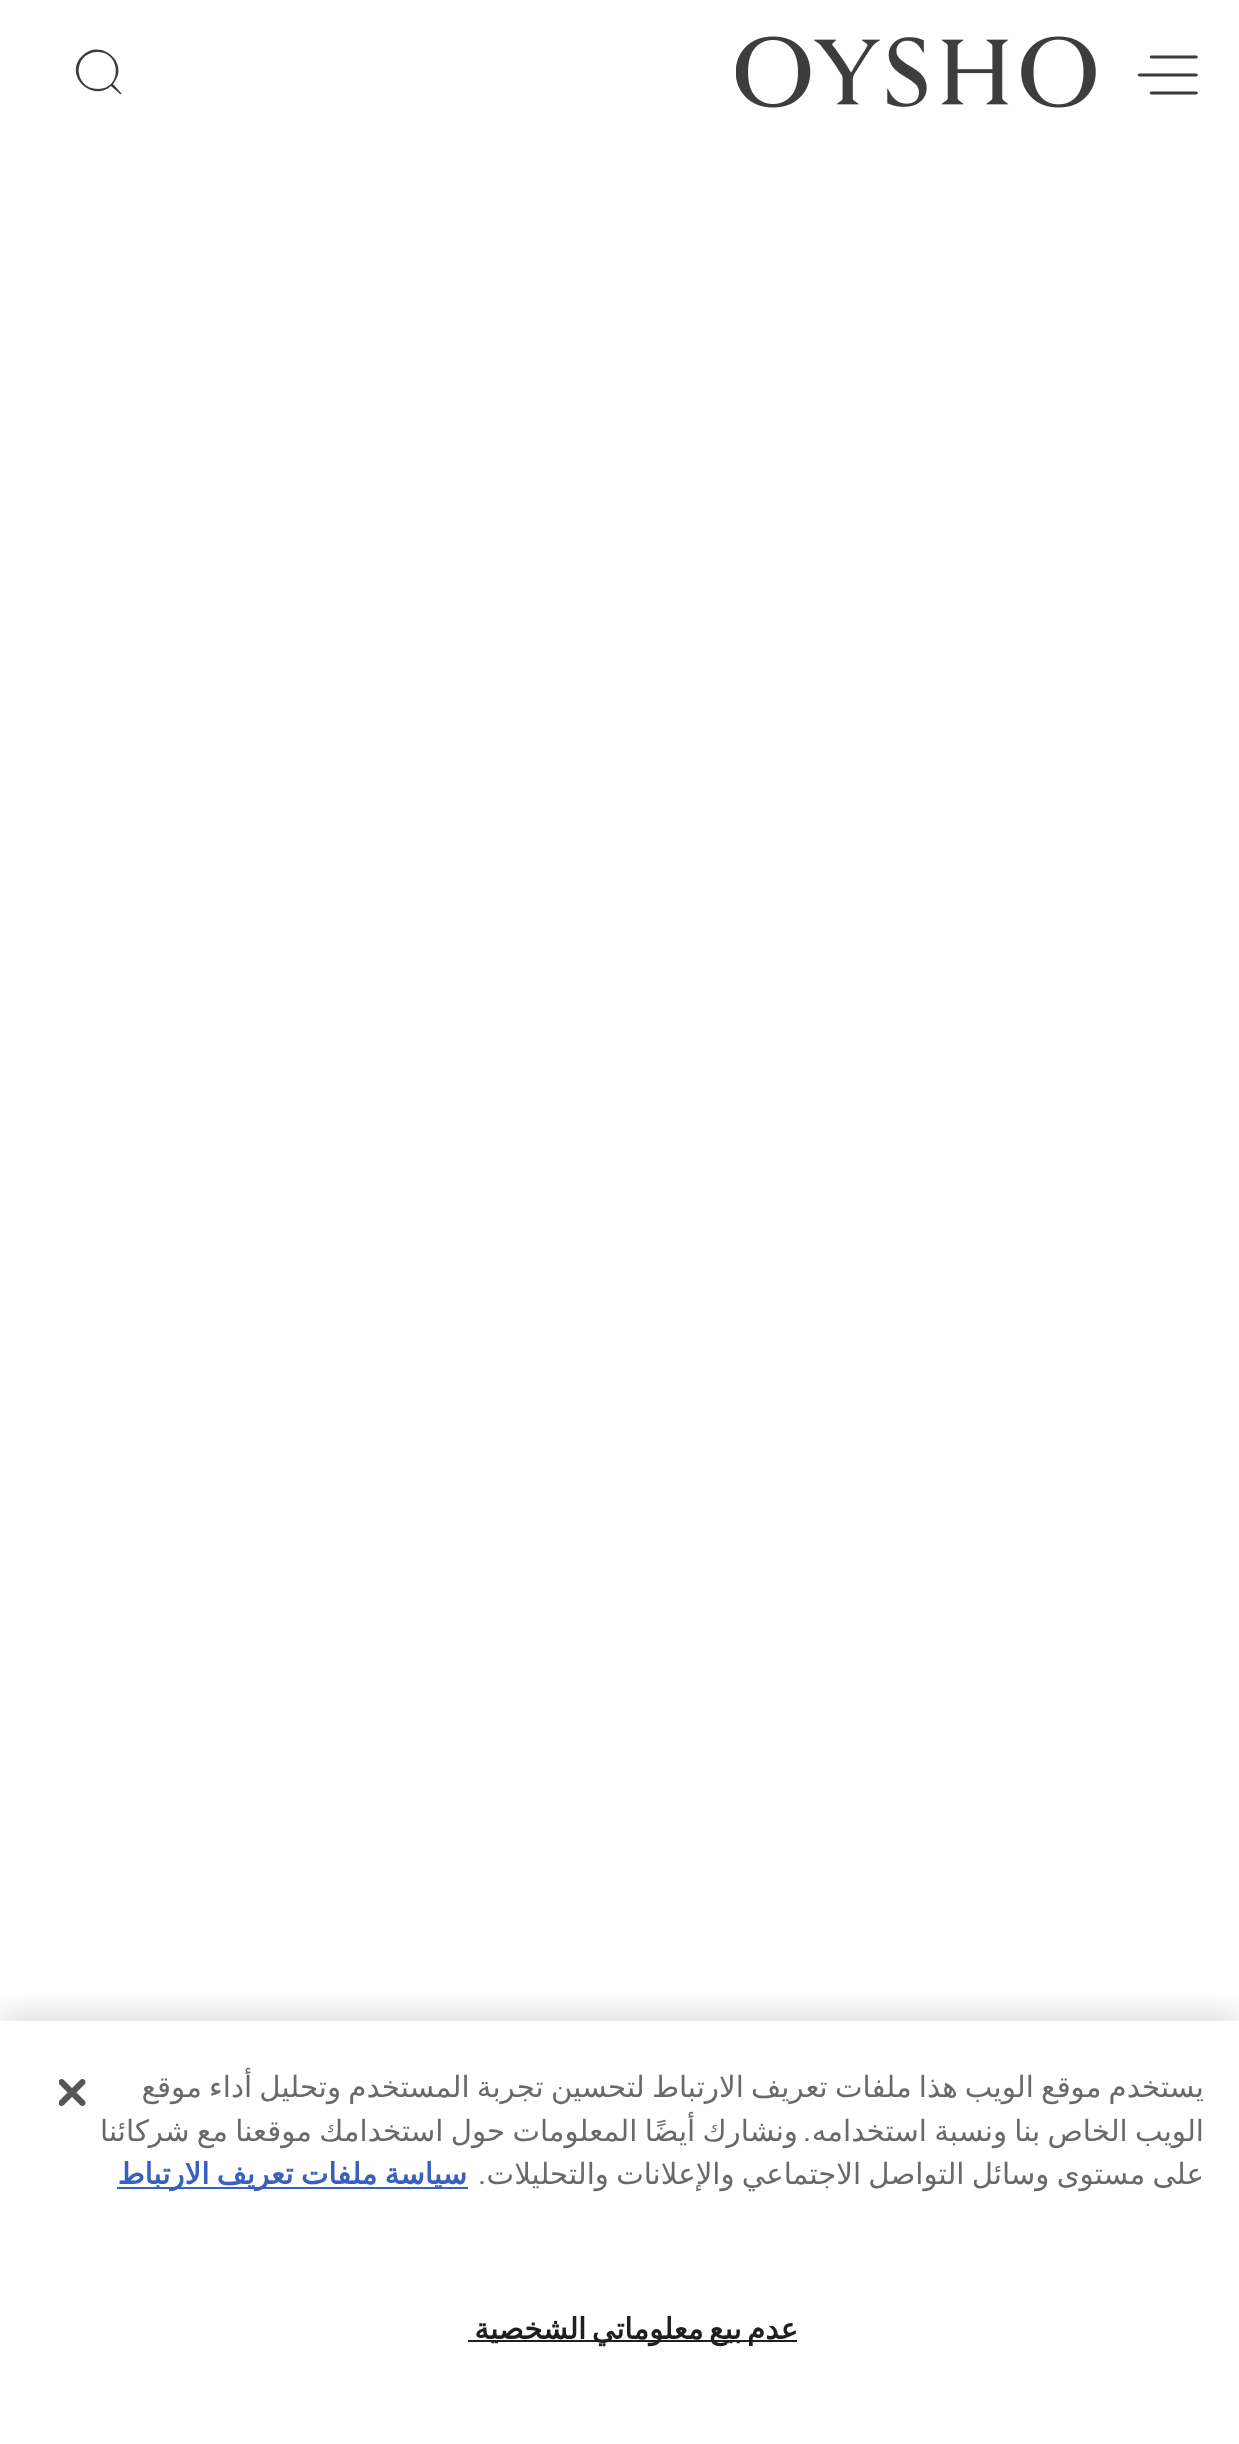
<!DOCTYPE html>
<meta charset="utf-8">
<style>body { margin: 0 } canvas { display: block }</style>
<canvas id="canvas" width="1239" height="2444"></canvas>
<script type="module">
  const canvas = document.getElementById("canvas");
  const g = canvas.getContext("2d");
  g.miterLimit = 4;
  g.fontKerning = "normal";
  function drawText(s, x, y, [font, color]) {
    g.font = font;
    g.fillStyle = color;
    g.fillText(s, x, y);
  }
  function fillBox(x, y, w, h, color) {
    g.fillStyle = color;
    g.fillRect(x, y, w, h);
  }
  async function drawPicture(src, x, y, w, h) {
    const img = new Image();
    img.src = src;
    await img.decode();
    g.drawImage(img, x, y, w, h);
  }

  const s1 = ["29.25px DejaVu Sans", "#696969"];
  const s2 = ["29.25px Roboto", "#696969"];
  const s3 = ["bold 29.25px DejaVu Sans", "#3860BE"];
  const s4 = ["bold 29.25px DejaVu Sans", "#1E1F21"];

  fillBox(0, 0, 1239, 2444, "#FFFFFF");
  await drawPicture("pic1.png", 1137, 55, 61, 40);
  await drawPicture("pic2.png", 736, 36, 360, 72);
  g.fillStyle = "#3D3D3D";
  g.beginPath();
  g.moveTo(98, 89);
  g.bezierCurveTo(73, 89, 72, 53, 97, 52);
  g.bezierCurveTo(121, 51, 123, 89, 98, 89);
  g.closePath();
  g.moveTo(121, 93);
  g.lineTo(113, 84);
  g.bezierCurveTo(131, 64, 101, 37, 82, 56);
  g.bezierCurveTo(63, 75, 92, 103, 111, 86);
  g.lineTo(120, 94);
  g.bezierCurveTo(121, 95, 122, 93, 121, 93);
  g.closePath();
  g.fill();
  g.save();
  g.beginPath();
  g.rect(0, 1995, 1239, 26);
  g.clip();
  g.fillStyle = "rgba(0, 0, 0, 0.2)";
  g.filter = "blur(20px)";
  g.beginPath();
  g.rect(0, 2021, 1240, 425);
  g.fill();
  g.filter = "none";
  g.restore();
  g.wordSpacing = "-2.1px";
  g.direction = "rtl";
  drawText("يستخدم موقع الويب هذا ملفات تعريف الارتباط لتحسين تجربة المستخدم وتحليل أداء موقع", 1204, 2097, s1);
  g.wordSpacing = "-2px";
  drawText("الويب الخاص بنا ونسبة استخدامه", 1204, 2141, s1);
  g.wordSpacing = "0px";
  drawText(".", 811, 2141, s2);
  g.wordSpacing = "-2px";
  drawText("ونشارك أيضًا المعلومات حول استخدامك موقعنا مع شركائنا", 798, 2141, s1);
  g.wordSpacing = "-2.1px";
  drawText("على مستوى وسائل التواصل الاجتماعي والإعلانات والتحليلات", 1204, 2184, s1);
  g.wordSpacing = "0px";
  drawText(".", 486, 2184, s2);
  fillBox(117, 2187, 351, 2, "#3860BE");
  g.wordSpacing = "-2px";
  drawText("سياسة ملفات تعريف الارتباط", 467, 2184, s3);
  fillBox(468, 2340, 329, 2, "#1E1F21");
  g.letterSpacing = "0.25px";
  g.wordSpacing = "-4px";
  drawText("عدم بيع معلوماتي الشخصية", 798, 2339, s4);
  await drawPicture("pic3.png", 59, 2079, 27, 27);
</script>
